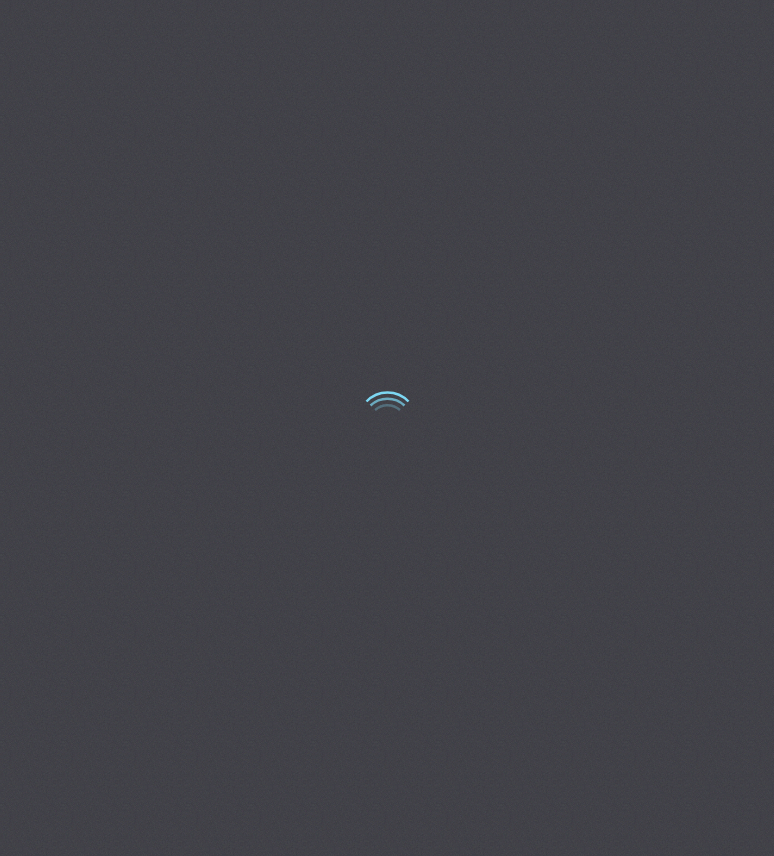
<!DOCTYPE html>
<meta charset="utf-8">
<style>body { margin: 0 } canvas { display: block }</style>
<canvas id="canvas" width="774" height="856"></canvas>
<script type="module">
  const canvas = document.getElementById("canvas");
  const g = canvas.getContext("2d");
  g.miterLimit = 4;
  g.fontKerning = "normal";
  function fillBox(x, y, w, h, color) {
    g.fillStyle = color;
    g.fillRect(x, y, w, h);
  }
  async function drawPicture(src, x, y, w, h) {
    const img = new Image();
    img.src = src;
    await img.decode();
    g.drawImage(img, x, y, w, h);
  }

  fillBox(0, 0, 774, 856, "#3B3B42");
  await drawPicture("pic1.png", 0, 0, 774, 856);
  g.beginPath();
  g.moveTo(366.5, 401.5);
  g.bezierCurveTo(378, 389.5, 397, 389.5, 408.5, 401.5);
  g.strokeStyle = "#7DD7F2";
  g.lineWidth = 2.5;
  g.stroke();
  g.beginPath();
  g.moveTo(370.5, 405.5);
  g.bezierCurveTo(380, 396.5, 395, 396.5, 404.5, 405.5);
  g.strokeStyle = "rgba(125, 215, 242, 0.7)";
  g.stroke();
  g.beginPath();
  g.moveTo(375, 410);
  g.bezierCurveTo(382, 403.5, 393, 403.5, 400, 410);
  g.strokeStyle = "rgba(125, 215, 242, 0.3)";
  g.stroke();
</script>
